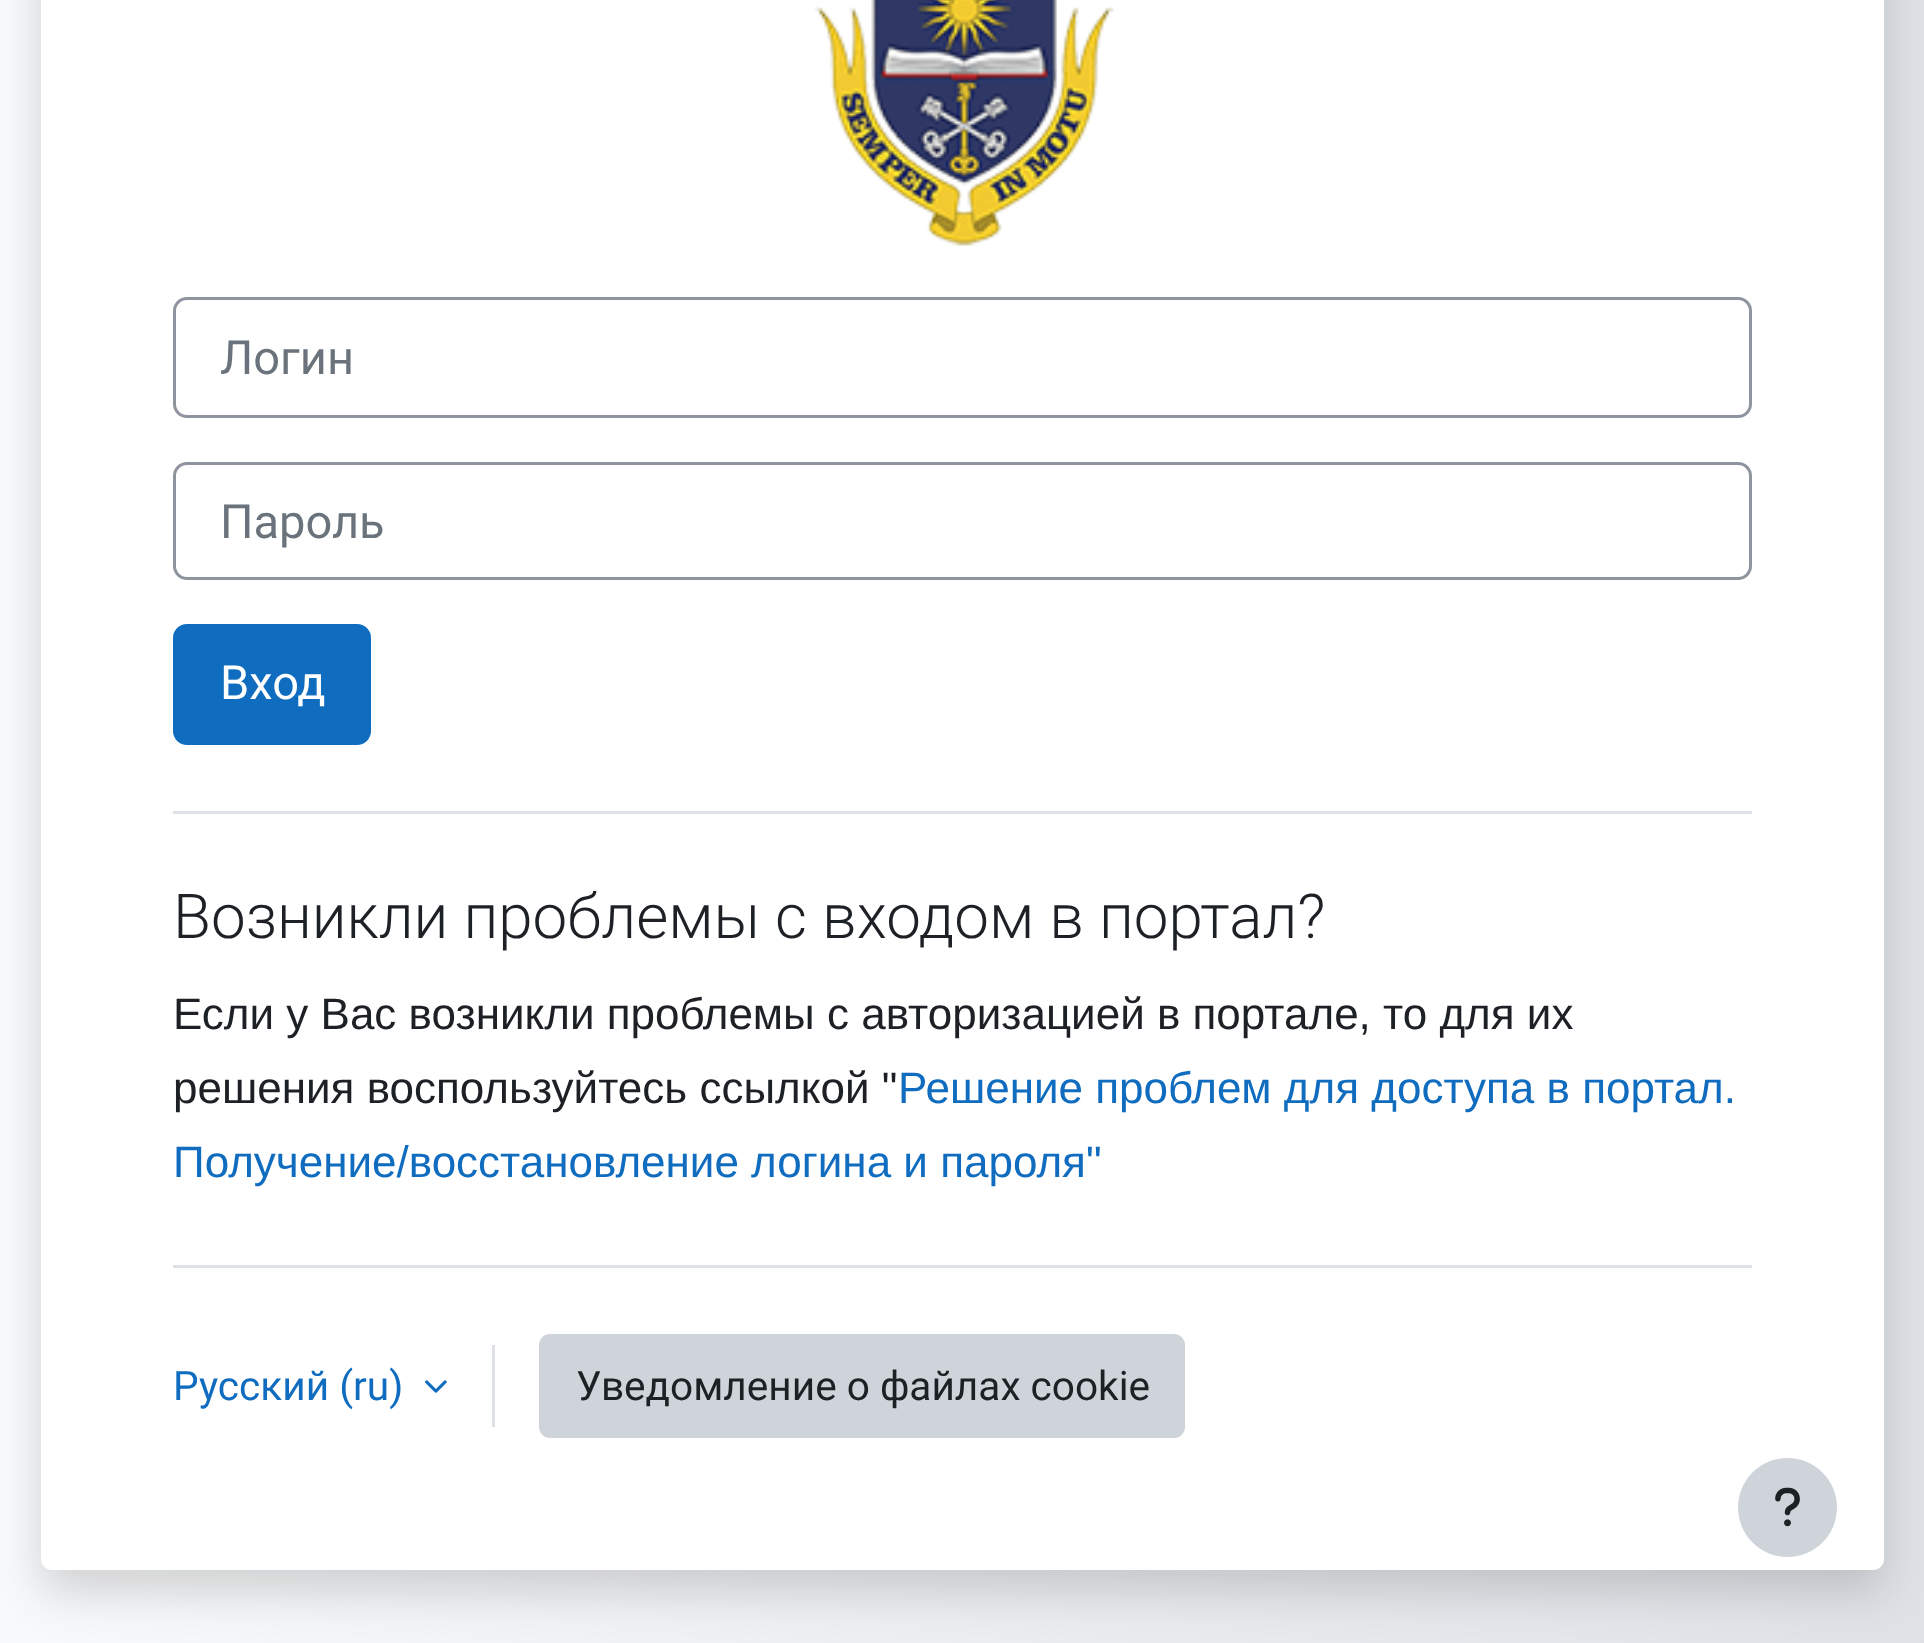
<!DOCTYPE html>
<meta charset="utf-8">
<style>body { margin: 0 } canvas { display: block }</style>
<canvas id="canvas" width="1924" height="1643"></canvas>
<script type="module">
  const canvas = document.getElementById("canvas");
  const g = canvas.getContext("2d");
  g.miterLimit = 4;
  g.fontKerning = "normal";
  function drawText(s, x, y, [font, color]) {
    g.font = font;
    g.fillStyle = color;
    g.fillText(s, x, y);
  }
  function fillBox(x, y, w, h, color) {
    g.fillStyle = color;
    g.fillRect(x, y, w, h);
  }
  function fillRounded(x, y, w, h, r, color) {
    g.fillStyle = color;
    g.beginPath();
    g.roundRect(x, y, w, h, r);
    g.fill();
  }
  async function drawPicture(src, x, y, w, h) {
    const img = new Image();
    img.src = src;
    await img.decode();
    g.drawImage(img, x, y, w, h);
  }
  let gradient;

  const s1 = ["47px Roboto", "#6A737B"];
  const s2 = ["47px Roboto", "#FFFFFF"];
  const s3 = ["300 61.9px Roboto", "#1D2125"];
  const s4 = ["44px Liberation Sans", "#1D2125"];
  const s5 = ["44px Liberation Sans", "#0F6CBF"];
  const s6 = ["40.6px Roboto", "#0F6CBF"];
  const s7 = ["40.6px Roboto", "#1D2125"];

  fillBox(0, 0, 1924, 1643, "#FFFFFF");
  gradient = g.createLinearGradient(0, 666, 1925, 665);
  gradient.addColorStop(0, "#F8F9FA");
  gradient.addColorStop(1, "#DEE2E6");
  g.fillStyle = gradient;
  g.fillRect(0, 0, 1924, 1643);
  g.fillStyle = "rgba(0, 0, 0, 0.15)";
  g.filter = "blur(22px)";
  g.beginPath();
  g.roundRect(41, -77, 1843, 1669, 11);
  g.fill();
  g.filter = "none";
  fillRounded(41, -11, 1843, 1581, 11, "#FFFFFF");
  await drawPicture("pic1.png", 813, 0, 301, 246);
  g.beginPath();
  g.roundRect(174.5, 298.5, 1576, 118, 12.5);
  g.strokeStyle = "#8F959E";
  g.lineWidth = 3;
  g.stroke();
  drawText("Логин", 220, 374, s1);
  g.beginPath();
  g.roundRect(174.5, 463.5, 1576, 115, 12.5);
  g.stroke();
  drawText("Пароль", 220, 538, s1);
  g.fillStyle = "#0F6CBF";
  g.beginPath();
  g.roundRect(174.5, 625.5, 195, 118, 12.5);
  g.fill();
  g.strokeStyle = "#0F6CBF";
  g.stroke();
  drawText("Вход", 220, 699, s2);
  fillBox(173, 811, 1579, 3, "#DEE2E6");
  drawText("Возникли проблемы с входом в портал?", 173, 938, s3);
  drawText("Если у Вас возникли проблемы с авторизацией в портале, то для их", 173, 1029, s4);
  drawText("решения воспользуйтесь ссылкой \"", 173, 1103, s4);
  drawText("Решение проблем для доступа в портал.", 898, 1103, s5);
  drawText("Получение/восстановление логина и пароля\"", 173, 1177, s5);
  fillBox(173, 1265, 1579, 3, "#DEE2E6");
  drawText("Русский (ru)", 173, 1400, s6);
  await drawPicture("pic2.png", 425, 1380, 22, 13);
  fillBox(492, 1345, 3, 82, "#DEE2E6");
  g.fillStyle = "#CED4DA";
  g.beginPath();
  g.roundRect(540.5, 1335.5, 643, 101, 9.5);
  g.fill();
  g.strokeStyle = "#CED4DA";
  g.stroke();
  drawText("Уведомление о файлах cookie", 576, 1400, s7);
  g.fillStyle = "#CED4DA";
  g.beginPath();
  g.arc(1787.5, 1507.5, 49.5, 0, Math.PI * 2);
  g.fill();
  await drawPicture("pic3.png", 1775, 1487, 25, 40);
</script>
